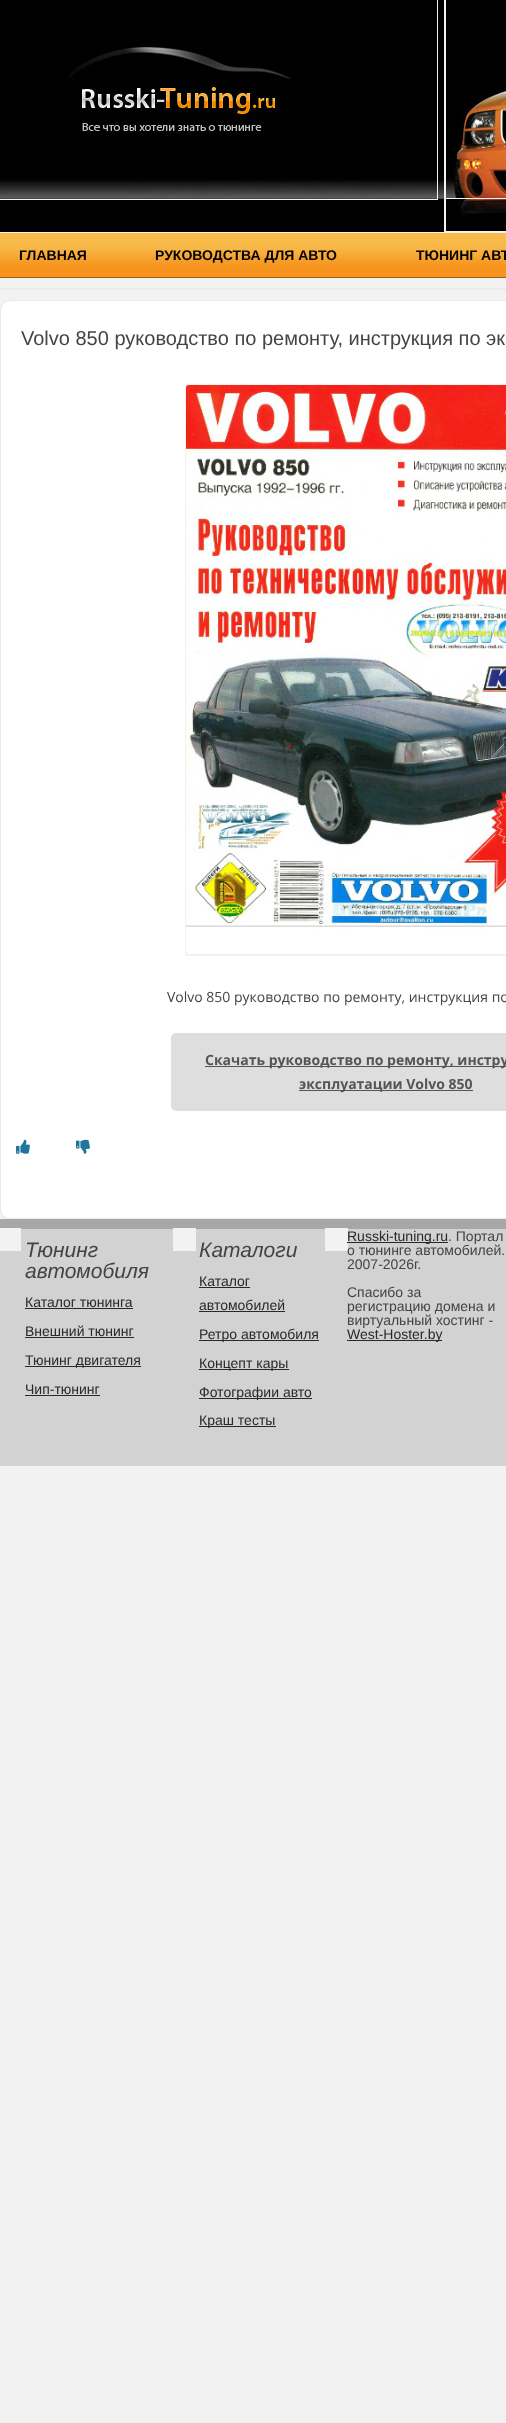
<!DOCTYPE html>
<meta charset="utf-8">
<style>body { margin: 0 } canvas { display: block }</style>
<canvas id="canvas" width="506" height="2423"></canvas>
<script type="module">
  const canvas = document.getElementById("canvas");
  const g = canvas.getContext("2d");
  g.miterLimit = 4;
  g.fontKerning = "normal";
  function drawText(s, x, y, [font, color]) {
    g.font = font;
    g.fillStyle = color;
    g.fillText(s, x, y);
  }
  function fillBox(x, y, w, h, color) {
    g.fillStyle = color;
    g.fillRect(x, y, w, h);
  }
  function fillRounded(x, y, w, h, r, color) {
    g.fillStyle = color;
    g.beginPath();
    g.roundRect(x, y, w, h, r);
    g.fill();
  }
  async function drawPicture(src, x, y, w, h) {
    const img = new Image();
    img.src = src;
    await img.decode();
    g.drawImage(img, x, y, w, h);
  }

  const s1 = ["bold 14px Liberation Sans", "#000000"];
  const s2 = ["20px Liberation Sans", "#444444"];
  const s3 = ["14px Open Sans", "#444444"];
  const s4 = ["bold 14px Open Sans", "#555555"];
  const s5 = ["italic 21px Liberation Sans", "#444444"];
  const s6 = ["14px Liberation Sans", "#292929"];
  const s7 = ["14px Liberation Sans", "#444444"];

  fillBox(0, 0, 506, 2423, "#F2F2F2");
  fillBox(438, 0, 6, 180, "#000000");
  await drawPicture("pic1.png", 438, 180, 6, 19);
  fillBox(0, 199, 444, 33, "#000000");
  await drawPicture("pic2.png", 0, 0, 438, 200);
  await drawPicture("pic3.png", 444, 0, 62, 198);
  await drawPicture("pic4.png", 444, 198, 62, 34);
  await drawPicture("pic5.png", 0, 232, 506, 46);
  drawText("ГЛАВНАЯ", 19, 260, s1);
  drawText("РУКОВОДСТВА ДЛЯ АВТО", 155, 260, s1);
  drawText("ТЮНИНГ АВТ", 416, 260, s1);
  fillRounded(0, 288, 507, 2, 1, "#EAEAEA");
  g.fillStyle = "#FFFFFF";
  g.beginPath();
  g.roundRect(0.5, 300.5, 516, 918, 9.5);
  g.fill();
  g.strokeStyle = "#EAEAEA";
  g.stroke();
  drawText("Volvo 850 руководство по ремонту, инструкция по эк", 21, 345, s2);
  await drawPicture("pic6.png", 185, 384, 321, 572);
  drawText("Volvo 850 руководство по ремонту, инструкция по", 167, 1002, s3);
  fillRounded(171, 1033, 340, 78, 5, "#DEDEDE");
  fillBox(205, 1066, 301, 1, "#555555");
  drawText("Скачать руководство по ремонту, инстру", 205, 1065, s4);
  fillBox(299, 1090, 174, 1, "#555555");
  drawText("эксплуатации Volvo 850", 299, 1089, s4);
  await drawPicture("pic7.png", 16, 1139, 14, 15);
  await drawPicture("pic8.png", 76, 1139, 14, 15);
  fillBox(0, 1219, 506, 10, "#A7A7A7");
  fillBox(0, 1229, 506, 237, "#D2D2D2");
  fillBox(0, 1228, 21, 23, "#F2F2F2");
  drawText("Тюнинг", 25, 1257, s5);
  drawText("автомобиля", 25, 1278, s5);
  drawText("Каталог тюнинга", 25, 1307, s6);
  fillBox(25, 1308, 108, 1, "#292929");
  drawText("Внешний тюнинг", 25, 1336, s6);
  fillBox(25, 1337, 109, 1, "#292929");
  fillBox(25, 1366, 116, 1, "#292929");
  drawText("Тюнинг двигателя", 25, 1365, s6);
  drawText("Чип-тюнинг", 25, 1394, s6);
  fillBox(25, 1395, 75, 1, "#292929");
  fillBox(173, 1228, 23, 23, "#F2F2F2");
  drawText("Каталоги", 199, 1257, s5);
  drawText("Каталог", 199, 1286, s6);
  fillBox(199, 1287, 51, 1, "#292929");
  drawText("автомобилей", 199, 1310, s6);
  fillBox(199, 1311, 86, 1, "#292929");
  fillBox(199, 1340, 120, 1, "#292929");
  drawText("Ретро автомобиля", 199, 1339, s6);
  fillBox(199, 1369, 90, 1, "#292929");
  drawText("Концепт кары", 199, 1368, s6);
  fillBox(199, 1398, 113, 1, "#292929");
  drawText("Фотографии авто", 199, 1397, s6);
  fillBox(199, 1426, 77, 1, "#292929");
  drawText("Краш тесты", 199, 1425, s6);
  fillBox(325, 1228, 23, 23, "#F2F2F2");
  fillBox(347, 1242, 101, 1, "#292929");
  drawText("Russki-tuning.ru", 347, 1241, s6);
  drawText(". Портал", 448, 1241, s7);
  drawText("о тюнинге автомобилей.", 347, 1255, s7);
  drawText("2007-2026г.", 347, 1269, s7);
  drawText("Спасибо за", 347, 1297, s7);
  drawText("регистрацию домена и", 347, 1311, s7);
  drawText("виртуальный хостинг -", 347, 1325, s7);
  fillBox(347, 1340, 95, 1, "#292929");
  drawText("West-Hoster.by", 347, 1339, s6);
</script>
